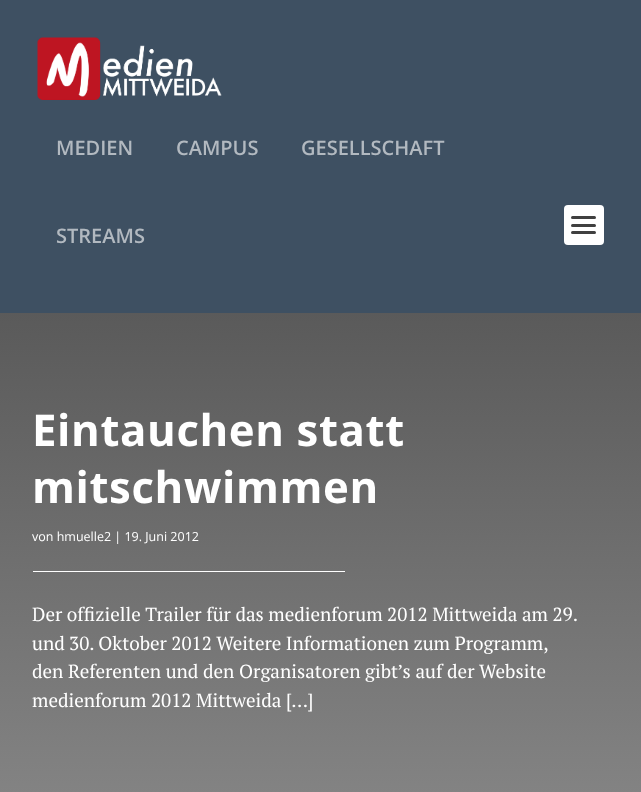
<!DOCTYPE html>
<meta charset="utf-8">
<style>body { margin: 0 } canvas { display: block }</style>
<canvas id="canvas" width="641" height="792"></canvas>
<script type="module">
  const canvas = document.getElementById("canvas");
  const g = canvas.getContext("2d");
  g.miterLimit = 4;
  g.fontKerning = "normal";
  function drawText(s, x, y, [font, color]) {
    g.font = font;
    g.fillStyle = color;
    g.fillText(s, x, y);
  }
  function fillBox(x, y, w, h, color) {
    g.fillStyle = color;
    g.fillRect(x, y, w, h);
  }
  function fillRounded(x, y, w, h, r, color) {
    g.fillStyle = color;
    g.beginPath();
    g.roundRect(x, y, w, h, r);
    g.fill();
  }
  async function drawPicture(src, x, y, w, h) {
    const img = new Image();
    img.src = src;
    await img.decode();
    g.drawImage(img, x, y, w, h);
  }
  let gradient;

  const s1 = ["600 20px Open Sans", "#B2B9C0"];
  const s2 = ["bold 43.75px Open Sans", "#FFFFFF"];
  const s3 = ["12.5px Open Sans", "#FFFFFF"];
  const s4 = ["19px PT Serif", "#FFFFFF"];

  fillBox(0, 0, 641, 792, "#FFFFFF");
  fillBox(0, 0, 641, 313, "#3E5062");
  await drawPicture("pic1.png", 37, 37, 185, 63);
  drawText("MEDIEN", 56, 155, s1);
  drawText("CAMPUS", 176, 155, s1);
  drawText("GESELLSCHAFT", 301, 155, s1);
  drawText("STREAMS", 56, 243, s1);
  fillRounded(564, 205, 40, 40, 4, "#FFFFFF");
  fillRounded(571, 216, 25, 3, 1.5, "#404040");
  fillRounded(571, 224, 25, 3, 1.5, "#404040");
  fillRounded(571, 231, 25, 3, 1.5, "#404040");
  gradient = g.createLinearGradient(321, 312, 321, 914);
  gradient.addColorStop(0, "#5A5A5A");
  gradient.addColorStop(1, "#8D8D8D");
  g.fillStyle = gradient;
  g.fillRect(0, 313, 641, 479);
  g.letterSpacing = "0.6px";
  drawText("Eintauchen statt", 32, 446, s2);
  drawText("mitschwimmen", 32, 503, s2);
  g.letterSpacing = "0px";
  drawText("von hmuelle2 | 19. Juni 2012", 32, 541, s3);
  fillBox(33, 571, 312, 1, "#FFFFFF");
  g.wordSpacing = "-0.1px";
  drawText("Der offizielle Trailer für das medienforum 2012 Mittweida am 29.", 32, 621, s4);
  g.wordSpacing = "-0.25px";
  drawText("und 30. Oktober 2012 Weitere Informationen zum Programm,", 32, 650, s4);
  g.wordSpacing = "0px";
  drawText("den Referenten und den Organisatoren gibt’s auf der Website", 32, 678, s4);
  drawText("medienforum 2012 Mittweida […]", 32, 707, s4);
</script>
